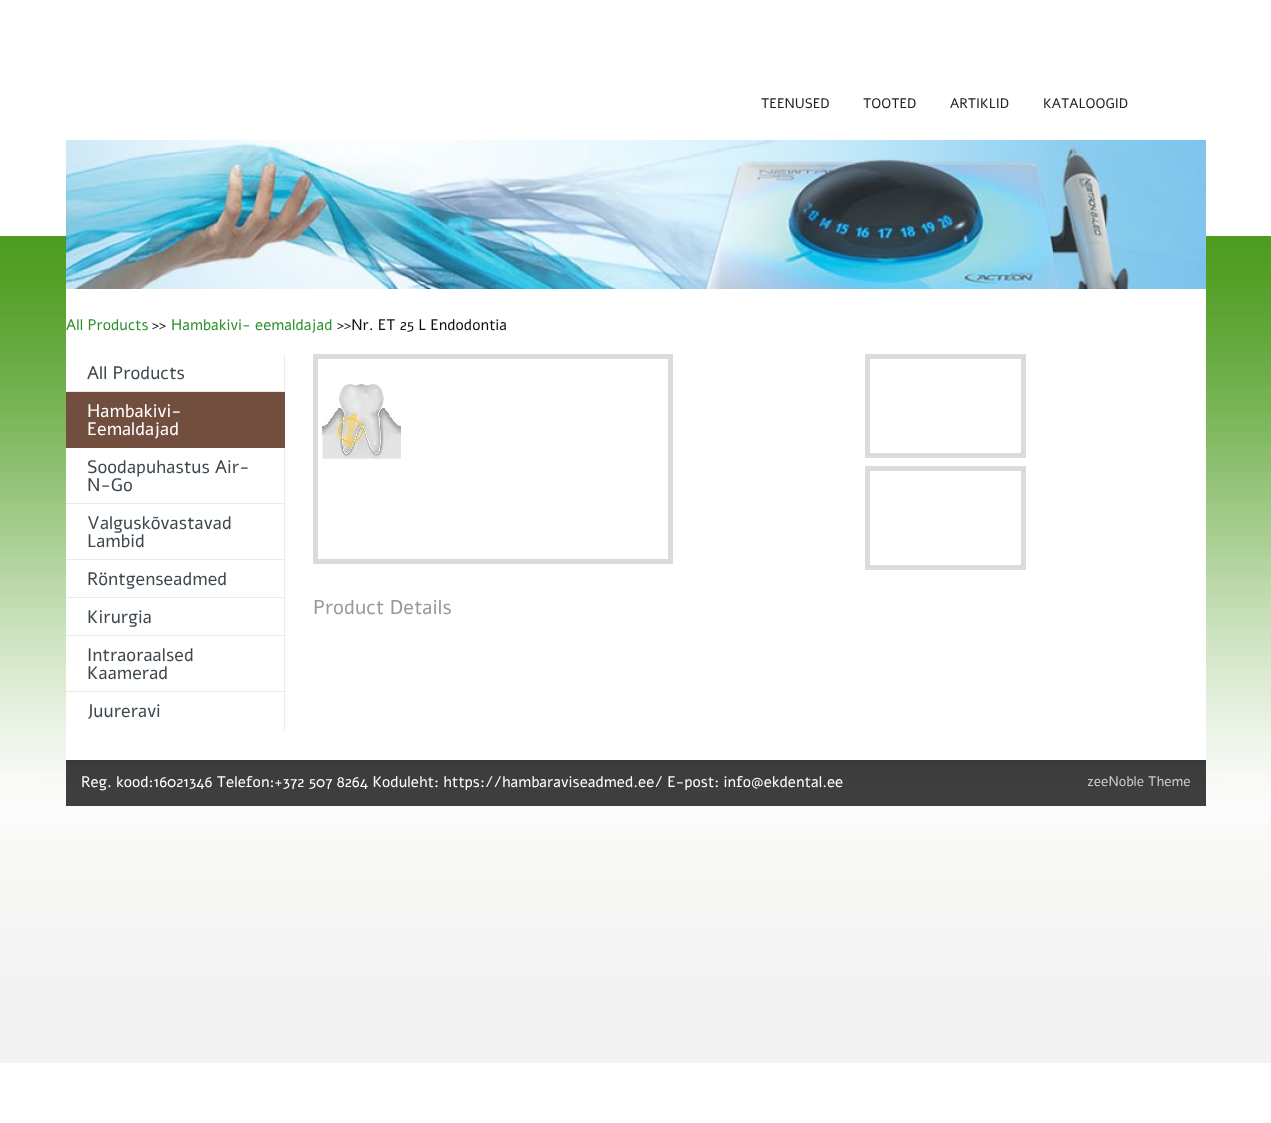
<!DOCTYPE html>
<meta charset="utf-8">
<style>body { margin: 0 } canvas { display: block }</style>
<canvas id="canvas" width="1271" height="1123"></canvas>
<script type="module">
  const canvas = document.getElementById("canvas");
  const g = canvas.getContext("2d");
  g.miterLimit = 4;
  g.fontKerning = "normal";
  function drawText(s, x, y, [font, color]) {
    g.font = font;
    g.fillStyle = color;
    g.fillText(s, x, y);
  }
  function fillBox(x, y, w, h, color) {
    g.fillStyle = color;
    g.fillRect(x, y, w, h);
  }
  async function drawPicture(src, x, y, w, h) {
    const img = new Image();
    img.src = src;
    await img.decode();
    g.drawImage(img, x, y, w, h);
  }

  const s1 = ["13.75px Alef", "#222222"];
  const s2 = ["15.2px Alef", "#2D912E"];
  const s3 = ["15.2px Alef", "#111111"];
  const s4 = ["18px Alef", "#3D484E"];
  const s5 = ["18px Alef", "#FFFFFF"];
  const s6 = ["20px Alef", "#999999"];
  const s7 = ["15.2px Alef", "#FFFFFF"];
  const s8 = ["13.75px Alef", "#CCCCCC"];

  fillBox(0, 0, 1271, 1123, "#FFFFFF");
  await drawPicture("pic1.png", 0, 0, 1271, 1123);
  fillBox(66, 230, 1140, 530, "#FFFFFF");
  drawText("TEENUSED", 761, 108, s1);
  drawText("TOOTED", 863, 108, s1);
  drawText("ARTIKLID", 950, 108, s1);
  drawText("KATALOOGID", 1043, 108, s1);
  await drawPicture("pic2.png", 66, 140, 1140, 149);
  drawText("All Products", 66, 330, s2);
  drawText(">>", 152, 330, s3);
  drawText("Hambakivi- eemaldajad", 171, 330, s2);
  drawText(">>Nr. ET 25 L Endodontia", 337, 330, s3);
  fillBox(66, 391, 219, 1, "#EBEBEB");
  fillBox(284, 354, 1, 37, "#EBEBEB");
  drawText("All Products", 87, 379, s4);
  fillBox(66, 392, 219, 56, "#724E3F");
  drawText("Hambakivi-", 87, 417, s5);
  drawText("Eemaldajad", 87, 435, s5);
  fillBox(66, 503, 219, 1, "#EBEBEB");
  fillBox(284, 448, 1, 55, "#EBEBEB");
  drawText("Soodapuhastus Air-", 87, 473, s4);
  drawText("N-Go", 87, 491, s4);
  fillBox(66, 559, 219, 1, "#EBEBEB");
  fillBox(284, 504, 1, 55, "#EBEBEB");
  drawText("Valguskõvastavad", 87, 529, s4);
  drawText("Lambid", 87, 547, s4);
  fillBox(66, 597, 219, 1, "#EBEBEB");
  fillBox(284, 560, 1, 37, "#EBEBEB");
  drawText("Röntgenseadmed", 87, 585, s4);
  fillBox(66, 635, 219, 1, "#EBEBEB");
  fillBox(284, 598, 1, 37, "#EBEBEB");
  drawText("Kirurgia", 87, 623, s4);
  fillBox(66, 691, 219, 1, "#EBEBEB");
  fillBox(284, 636, 1, 55, "#EBEBEB");
  drawText("Intraoraalsed", 87, 661, s4);
  drawText("Kaamerad", 87, 679, s4);
  fillBox(284, 692, 1, 38, "#EBEBEB");
  drawText("Juureravi", 87, 717, s4);
  g.strokeStyle = "#DCDBDB";
  g.lineWidth = 5;
  g.strokeRect(315.5, 356.5, 355, 205);
  await drawPicture("pic3.png", 322, 383, 79, 76);
  g.strokeRect(867.5, 356.5, 156, 99);
  g.strokeRect(867.5, 468.5, 156, 99);
  drawText("Product Details", 313, 614, s6);
  fillBox(66, 760, 1140, 46, "#444444");
  await drawPicture("pic4.png", 66, 760, 1140, 46);
  drawText("Reg. kood:16021346 Telefon:+372 507 8264 Koduleht: https://hambaraviseadmed.ee/ E-post: info@ekdental.ee", 81, 787, s7);
  drawText("zeeNoble Theme", 1087, 786, s8);
</script>
